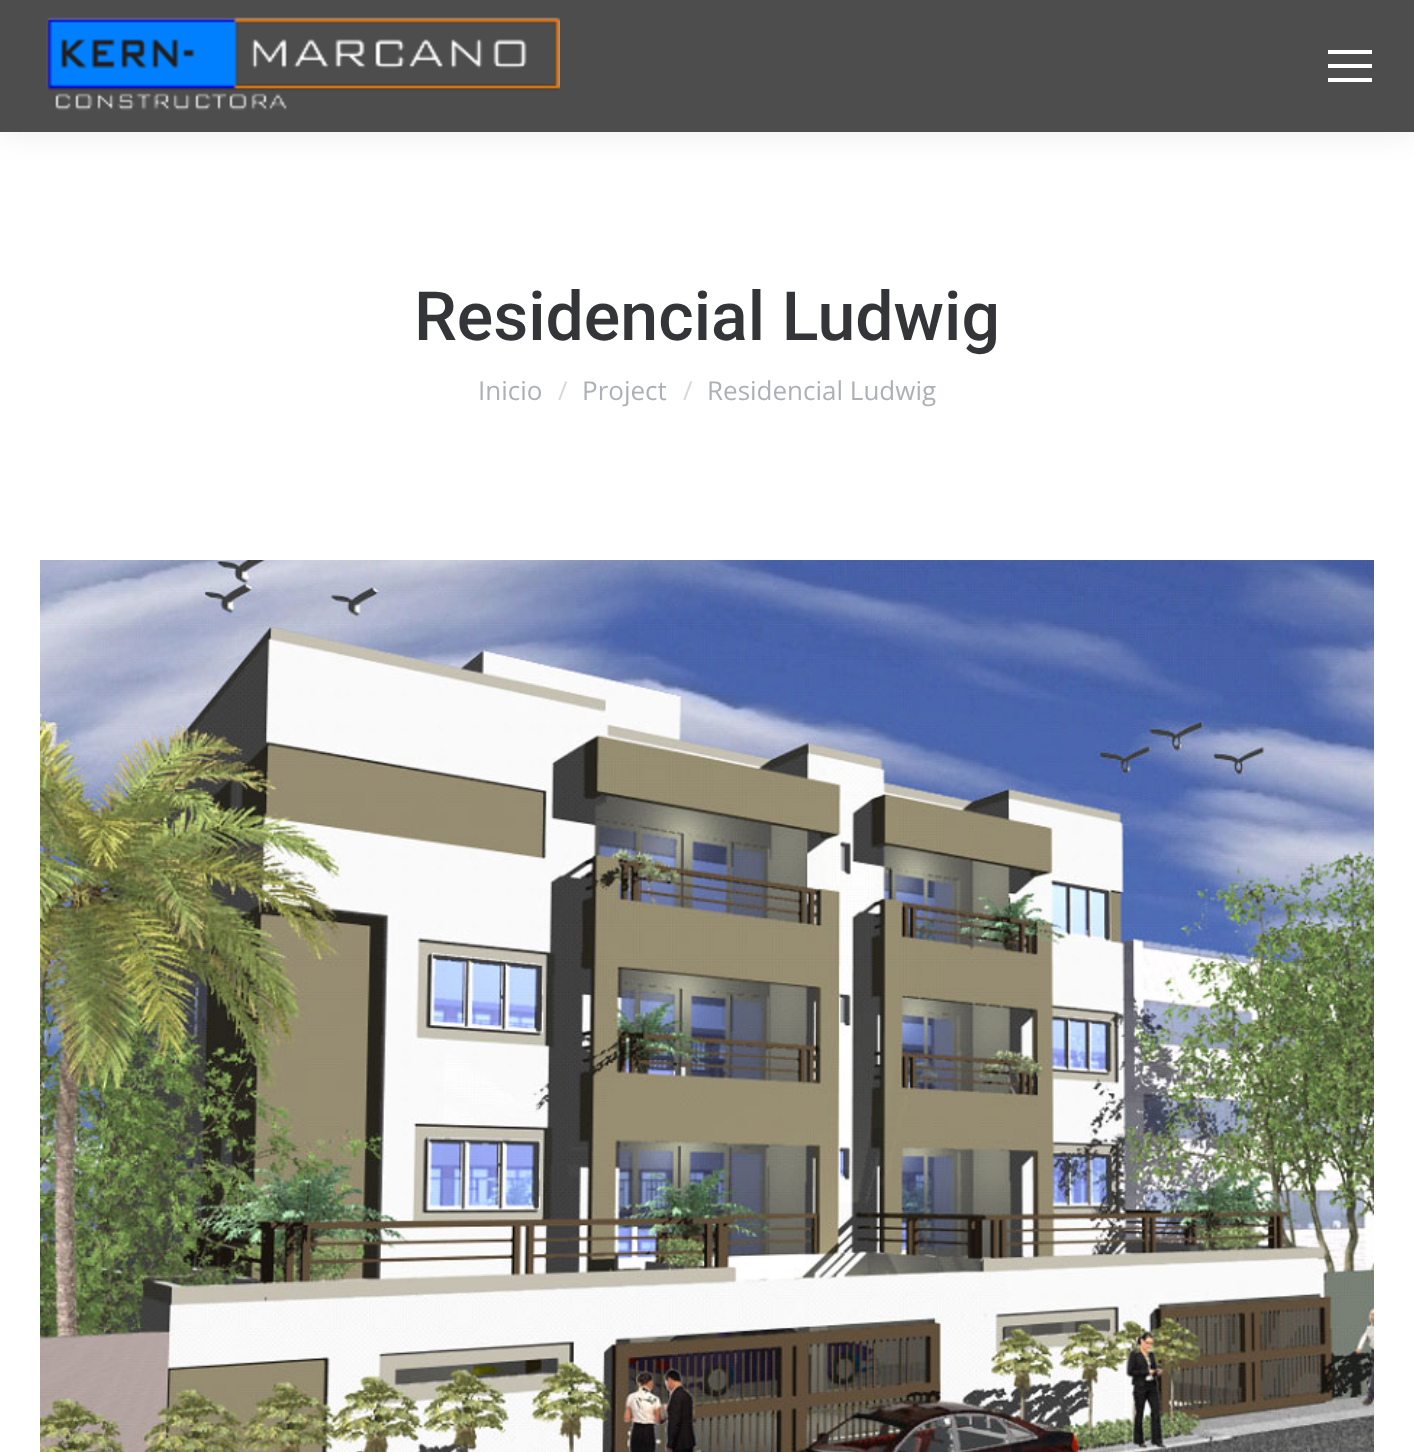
<!DOCTYPE html>
<meta charset="utf-8">
<style>body { margin: 0 } canvas { display: block }</style>
<canvas id="canvas" width="1414" height="1452"></canvas>
<script type="module">
  const canvas = document.getElementById("canvas");
  const g = canvas.getContext("2d");
  g.miterLimit = 4;
  g.fontKerning = "normal";
  function drawText(s, x, y, [font, color]) {
    g.font = font;
    g.fillStyle = color;
    g.fillText(s, x, y);
  }
  function fillBox(x, y, w, h, color) {
    g.fillStyle = color;
    g.fillRect(x, y, w, h);
  }
  async function drawPicture(src, x, y, w, h) {
    const img = new Image();
    img.src = src;
    await img.decode();
    g.drawImage(img, x, y, w, h);
  }

  const s1 = ["500 68px Roboto", "#333539"];
  const s2 = ["26px Open Sans", "#ADB0B6"];
  const s3 = ["26px Open Sans", "#D6D8DB"];

  fillBox(0, 0, 1414, 1452, "#FFFFFF");
  g.fillStyle = "rgba(0, 0, 0, 0.07)";
  g.filter = "blur(15px)";
  g.beginPath();
  g.rect(-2, -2, 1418, 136);
  g.fill();
  g.filter = "none";
  fillBox(0, 0, 1414, 132, "#4D4D4D");
  await drawPicture("pic1.png", 46, 17, 514, 94);
  fillBox(1328, 50, 44, 4, "#FFFFFF");
  fillBox(1328, 64, 44, 4, "#FFFFFF");
  fillBox(1328, 78, 44, 4, "#FFFFFF");
  drawText("Residencial Ludwig", 414, 340, s1);
  drawText("Inicio", 478, 400, s2);
  drawText("/", 558, 400, s3);
  drawText("Project", 582, 400, s2);
  drawText("/", 683, 400, s3);
  drawText("Residencial Ludwig", 707, 400, s2);
  await drawPicture("pic2.png", 40, 560, 1334, 892);
</script>
